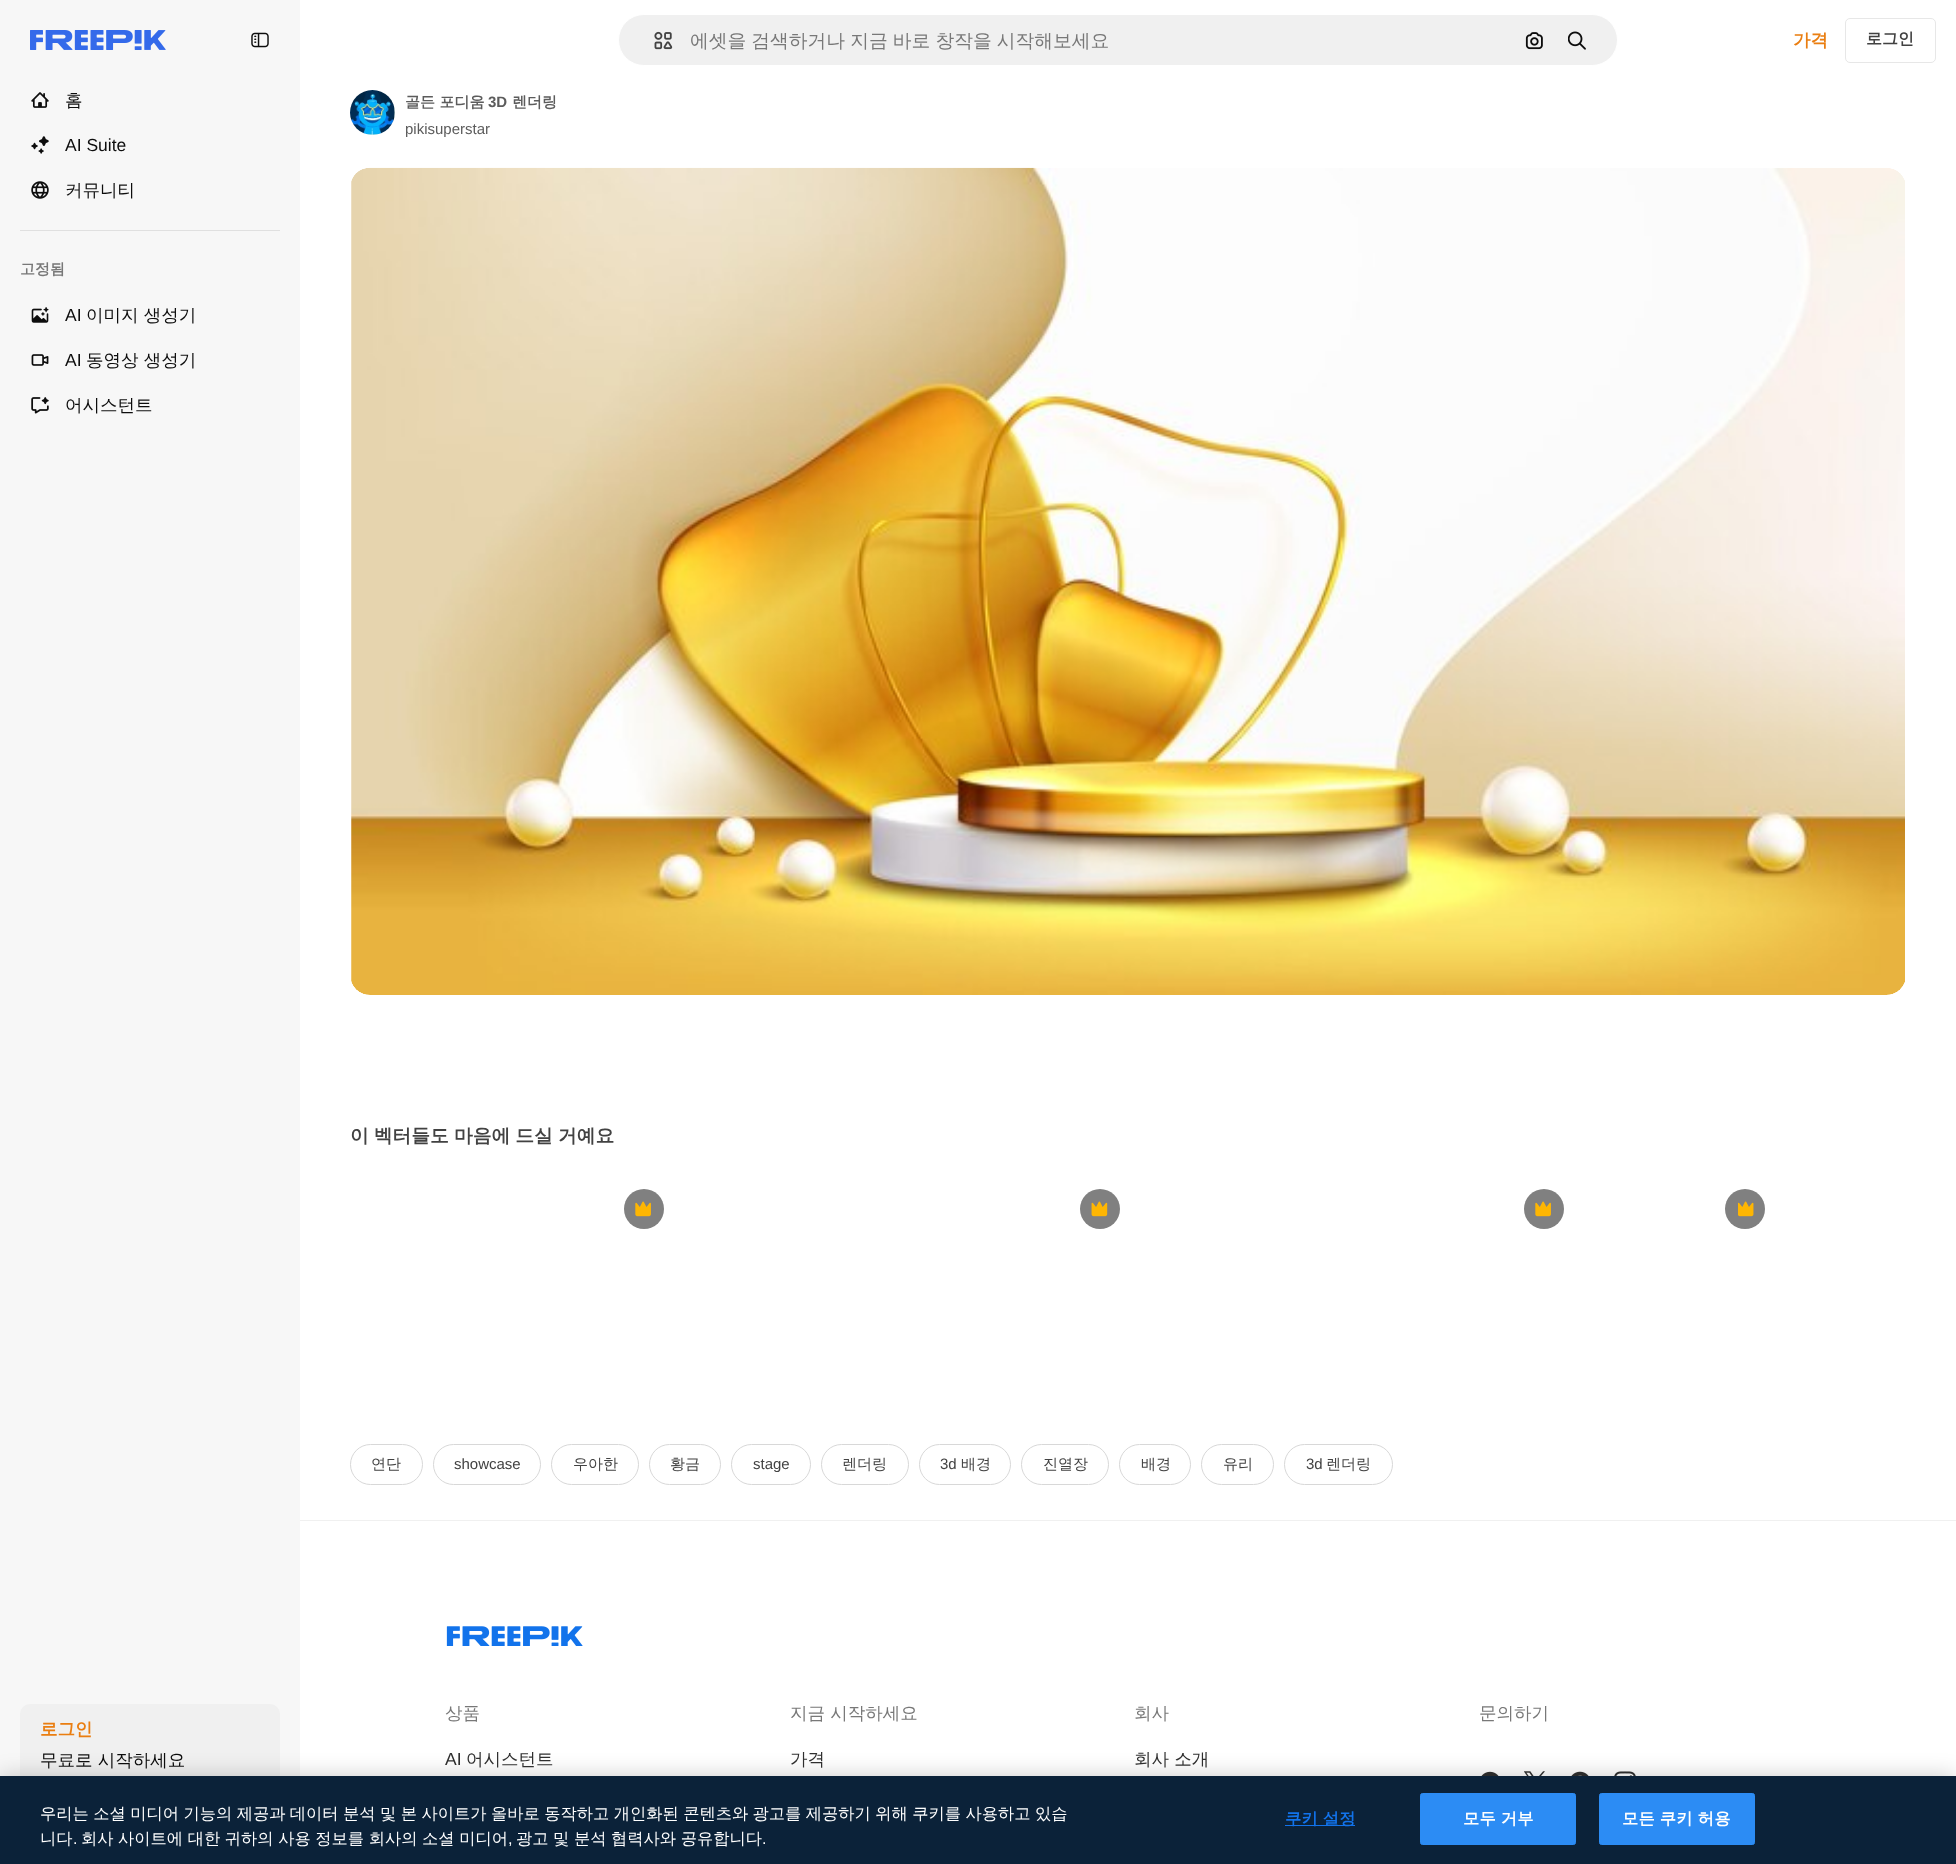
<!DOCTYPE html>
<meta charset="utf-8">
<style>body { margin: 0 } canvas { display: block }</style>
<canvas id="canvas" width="1956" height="1864"></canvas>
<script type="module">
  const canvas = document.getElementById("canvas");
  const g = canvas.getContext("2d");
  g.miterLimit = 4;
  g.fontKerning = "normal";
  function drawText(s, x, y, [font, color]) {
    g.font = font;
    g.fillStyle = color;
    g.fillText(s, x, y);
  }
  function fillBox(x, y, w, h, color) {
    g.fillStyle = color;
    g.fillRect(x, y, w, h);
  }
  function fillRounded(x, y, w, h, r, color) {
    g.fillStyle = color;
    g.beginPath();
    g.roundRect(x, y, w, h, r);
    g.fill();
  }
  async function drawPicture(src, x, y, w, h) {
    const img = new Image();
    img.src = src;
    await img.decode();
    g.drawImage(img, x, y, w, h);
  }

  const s1 = ["500 17.5px WenQuanYi Zen Hei", "#0D0D0D"];
  const s2 = ["17.5px Liberation Sans", "#0D0D0D"];
  const s3 = ["bold 15px WenQuanYi Zen Hei", "#787878"];
  const s4 = ["bold 17.5px WenQuanYi Zen Hei", "#EA7E11"];
  const s5 = ["500 18.75px WenQuanYi Zen Hei", "#787878"];
  const s6 = ["bold 16px WenQuanYi Zen Hei", "#424242"];
  const s7 = ["bold 15px WenQuanYi Zen Hei", "#5C5C5C"];
  const s8 = ["bold 15px Liberation Sans", "#5C5C5C"];
  const s9 = ["15px Liberation Sans", "#5C5C5C"];
  const s10 = ["bold 18.75px WenQuanYi Zen Hei", "#424242"];
  const s11 = ["500 15px WenQuanYi Zen Hei", "#424242"];
  const s12 = ["15px Liberation Sans", "#424242"];
  const s13 = ["500 17.5px WenQuanYi Zen Hei", "#787878"];
  const s14 = ["17.5px Liberation Sans", "#303030"];
  const s15 = ["500 17.5px WenQuanYi Zen Hei", "#303030"];
  const s16 = ["500 16.25px WenQuanYi Zen Hei", "#FFFFFF"];
  const s17 = ["16.25px Liberation Sans", "#FFFFFF"];
  const s18 = ["bold 16.25px WenQuanYi Zen Hei", "#1273EB"];
  const s19 = ["bold 16.25px WenQuanYi Zen Hei", "#FFFFFF"];

  fillBox(0, 0, 1956, 1864, "#FFFFFF");
  fillBox(0, 0, 300, 1776, "#F7F7F7");
  await drawPicture("pic1.png", 30, 30, 136, 20);
  await drawPicture("pic2.png", 251, 32, 18, 16);
  await drawPicture("pic3.png", 31, 92, 18, 16);
  drawText("홈", 65, 106, s1);
  await drawPicture("pic4.png", 31, 136, 18, 18);
  drawText("AI Suite", 65, 151, s2);
  await drawPicture("pic5.png", 31, 181, 18, 18);
  drawText("커뮤니티", 65, 196, s1);
  fillBox(20, 230, 260, 1, "#E0E0E0");
  drawText("고정됨", 20, 274, s3);
  await drawPicture("pic6.png", 31, 307, 18, 16);
  drawText("AI", 65, 321, s2);
  drawText("이미지 생성기", 86, 321, s1);
  await drawPicture("pic7.png", 31, 354, 18, 12);
  drawText("AI", 65, 366, s2);
  drawText("동영상 생성기", 86, 366, s1);
  await drawPicture("pic8.png", 31, 397, 18, 17);
  drawText("어시스턴트", 65, 411, s1);
  fillRounded(20, 1704, 260, 81, 10, "#F0F0F0");
  drawText("로그인", 40, 1735, s4);
  drawText("무료로 시작하세요", 40, 1766, s1);
  g.fillStyle = "#F0F0F0";
  g.beginPath();
  g.roundRect(618.5, 14.5, 999, 51, 25.5);
  g.fill();
  g.strokeStyle = "#FFFFFF";
  g.stroke();
  await drawPicture("pic9.png", 654, 31, 19, 19);
  g.wordSpacing = "-0.5px";
  drawText("에셋을 검색하거나 지금 바로 창작을 시작해보세요", 690, 47, s5);
  await drawPicture("pic10.png", 1525, 32, 18, 18);
  await drawPicture("pic11.png", 1568, 31, 18, 19);
  g.wordSpacing = "0px";
  drawText("가격", 1793, 46, s4);
  g.beginPath();
  g.roundRect(1845.5, 18.5, 90, 44, 4.5);
  g.strokeStyle = "#E7E7E7";
  g.stroke();
  drawText("로그인", 1866, 44, s6);
  await drawPicture("pic12.png", 350, 90, 45, 45);
  drawText("골든 포디움", 405, 107, s7);
  drawText("3D", 488, 107, s8);
  drawText("렌더링", 512, 107, s7);
  drawText("pikisuperstar", 405, 134, s9);
  await drawPicture("pic13.png", 351, 167, 1554, 828);
  g.wordSpacing = "-0.5px";
  drawText("이 벡터들도 마음에 드실 거예요", 350, 1142, s10);
  g.fillStyle = "#808080";
  g.beginPath();
  g.arc(644, 1209, 20, 0, Math.PI * 2);
  g.fill();
  await drawPicture("pic14.png", 635, 1201, 16, 16);
  g.beginPath();
  g.arc(1100, 1209, 20, 0, Math.PI * 2);
  g.fill();
  await drawPicture("pic15.png", 1091, 1201, 17, 16);
  g.beginPath();
  g.arc(1544, 1209, 20, 0, Math.PI * 2);
  g.fill();
  await drawPicture("pic14.png", 1535, 1201, 16, 16);
  g.beginPath();
  g.arc(1745, 1209, 20, 0, Math.PI * 2);
  g.fill();
  await drawPicture("pic16.png", 1738, 1201, 16, 16);
  g.beginPath();
  g.roundRect(350.5, 1444.5, 72, 40, 20);
  g.strokeStyle = "#D8D8D8";
  g.stroke();
  g.wordSpacing = "0px";
  drawText("연단", 371, 1469, s11);
  g.beginPath();
  g.roundRect(433.5, 1444.5, 107, 40, 20);
  g.stroke();
  drawText("showcase", 454, 1469, s12);
  g.beginPath();
  g.roundRect(551.5, 1444.5, 87, 40, 20);
  g.stroke();
  drawText("우아한", 573, 1469, s11);
  g.beginPath();
  g.roundRect(649.5, 1444.5, 71, 40, 20);
  g.stroke();
  drawText("황금", 670, 1469, s11);
  g.beginPath();
  g.roundRect(731.5, 1444.5, 79, 40, 20);
  g.stroke();
  drawText("stage", 753, 1469, s12);
  g.beginPath();
  g.roundRect(821.5, 1444.5, 87, 40, 20);
  g.stroke();
  drawText("렌더링", 842, 1469, s11);
  g.beginPath();
  g.roundRect(919.5, 1444.5, 91, 40, 20);
  g.stroke();
  drawText("3d", 940, 1469, s12);
  drawText("배경", 961, 1469, s11);
  g.beginPath();
  g.roundRect(1021.5, 1444.5, 87, 40, 20);
  g.stroke();
  drawText("진열장", 1043, 1469, s11);
  g.beginPath();
  g.roundRect(1119.5, 1444.5, 71, 40, 20);
  g.stroke();
  drawText("배경", 1141, 1469, s11);
  g.beginPath();
  g.roundRect(1201.5, 1444.5, 72, 40, 20);
  g.stroke();
  drawText("유리", 1223, 1469, s11);
  g.beginPath();
  g.roundRect(1284.5, 1444.5, 108, 40, 20);
  g.stroke();
  drawText("3d", 1306, 1469, s12);
  drawText("렌더링", 1326, 1469, s11);
  fillBox(300, 1520, 1656, 1, "#F0F0F0");
  await drawPicture("pic17.png", 446, 1626, 137, 20);
  drawText("상품", 445, 1719, s13);
  drawText("AI", 445, 1765, s14);
  drawText("어시스턴트", 466, 1765, s15);
  drawText("지금 시작하세요", 790, 1719, s13);
  drawText("가격", 790, 1765, s15);
  drawText("회사", 1134, 1719, s13);
  drawText("회사 소개", 1134, 1765, s15);
  drawText("문의하기", 1479, 1719, s13);
  await drawPicture("pic18.png", 1481, 1771, 18, 5);
  await drawPicture("pic19.png", 1524, 1771, 21, 5);
  await drawPicture("pic20.png", 1571, 1771, 18, 5);
  await drawPicture("pic21.png", 1614, 1771, 22, 5);
  g.fillStyle = "rgba(0, 0, 0, 0.2)";
  g.filter = "blur(11px)";
  g.beginPath();
  g.rect(0, 1776, 1956, 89);
  g.fill();
  g.filter = "none";
  fillBox(0, 1776, 1956, 88, "#0B2239");
  g.wordSpacing = "-0.4px";
  drawText("우리는 소셜 미디어 기능의 제공과 데이터 분석 및 본 사이트가 올바로 동작하고 개인화된 콘텐츠와 광고를 제공하기 위해 쿠키를 사용하고 있습", 40, 1819, s16);
  g.wordSpacing = "0px";
  drawText("니다", 40, 1844, s16);
  drawText(".", 73, 1844, s17);
  g.wordSpacing = "-0.25px";
  drawText("회사 사이트에 대한 귀하의 사용 정보를 회사의 소셜 미디어", 81, 1844, s16);
  g.wordSpacing = "0px";
  drawText(",", 508, 1844, s17);
  g.wordSpacing = "-0.25px";
  drawText("광고 및 분석 협력사와 공유합니다", 516, 1844, s16);
  g.wordSpacing = "0px";
  drawText(".", 762, 1844, s17);
  fillBox(1285, 1825, 70, 1, "#1273EB");
  g.letterSpacing = "0.25px";
  g.wordSpacing = "-0.25px";
  drawText("쿠키 설정", 1285, 1824, s18);
  g.fillStyle = "#2C8CF4";
  g.beginPath();
  g.roundRect(1420.5, 1793.5, 155, 51, 2);
  g.fill();
  g.strokeStyle = "#2C8CF4";
  g.stroke();
  drawText("모두 거부", 1463, 1824, s19);
  g.fillStyle = "#2C8CF4";
  g.beginPath();
  g.roundRect(1599.5, 1793.5, 155, 51, 2);
  g.fill();
  g.stroke();
  drawText("모든 쿠키 허용", 1622, 1824, s19);
</script>
